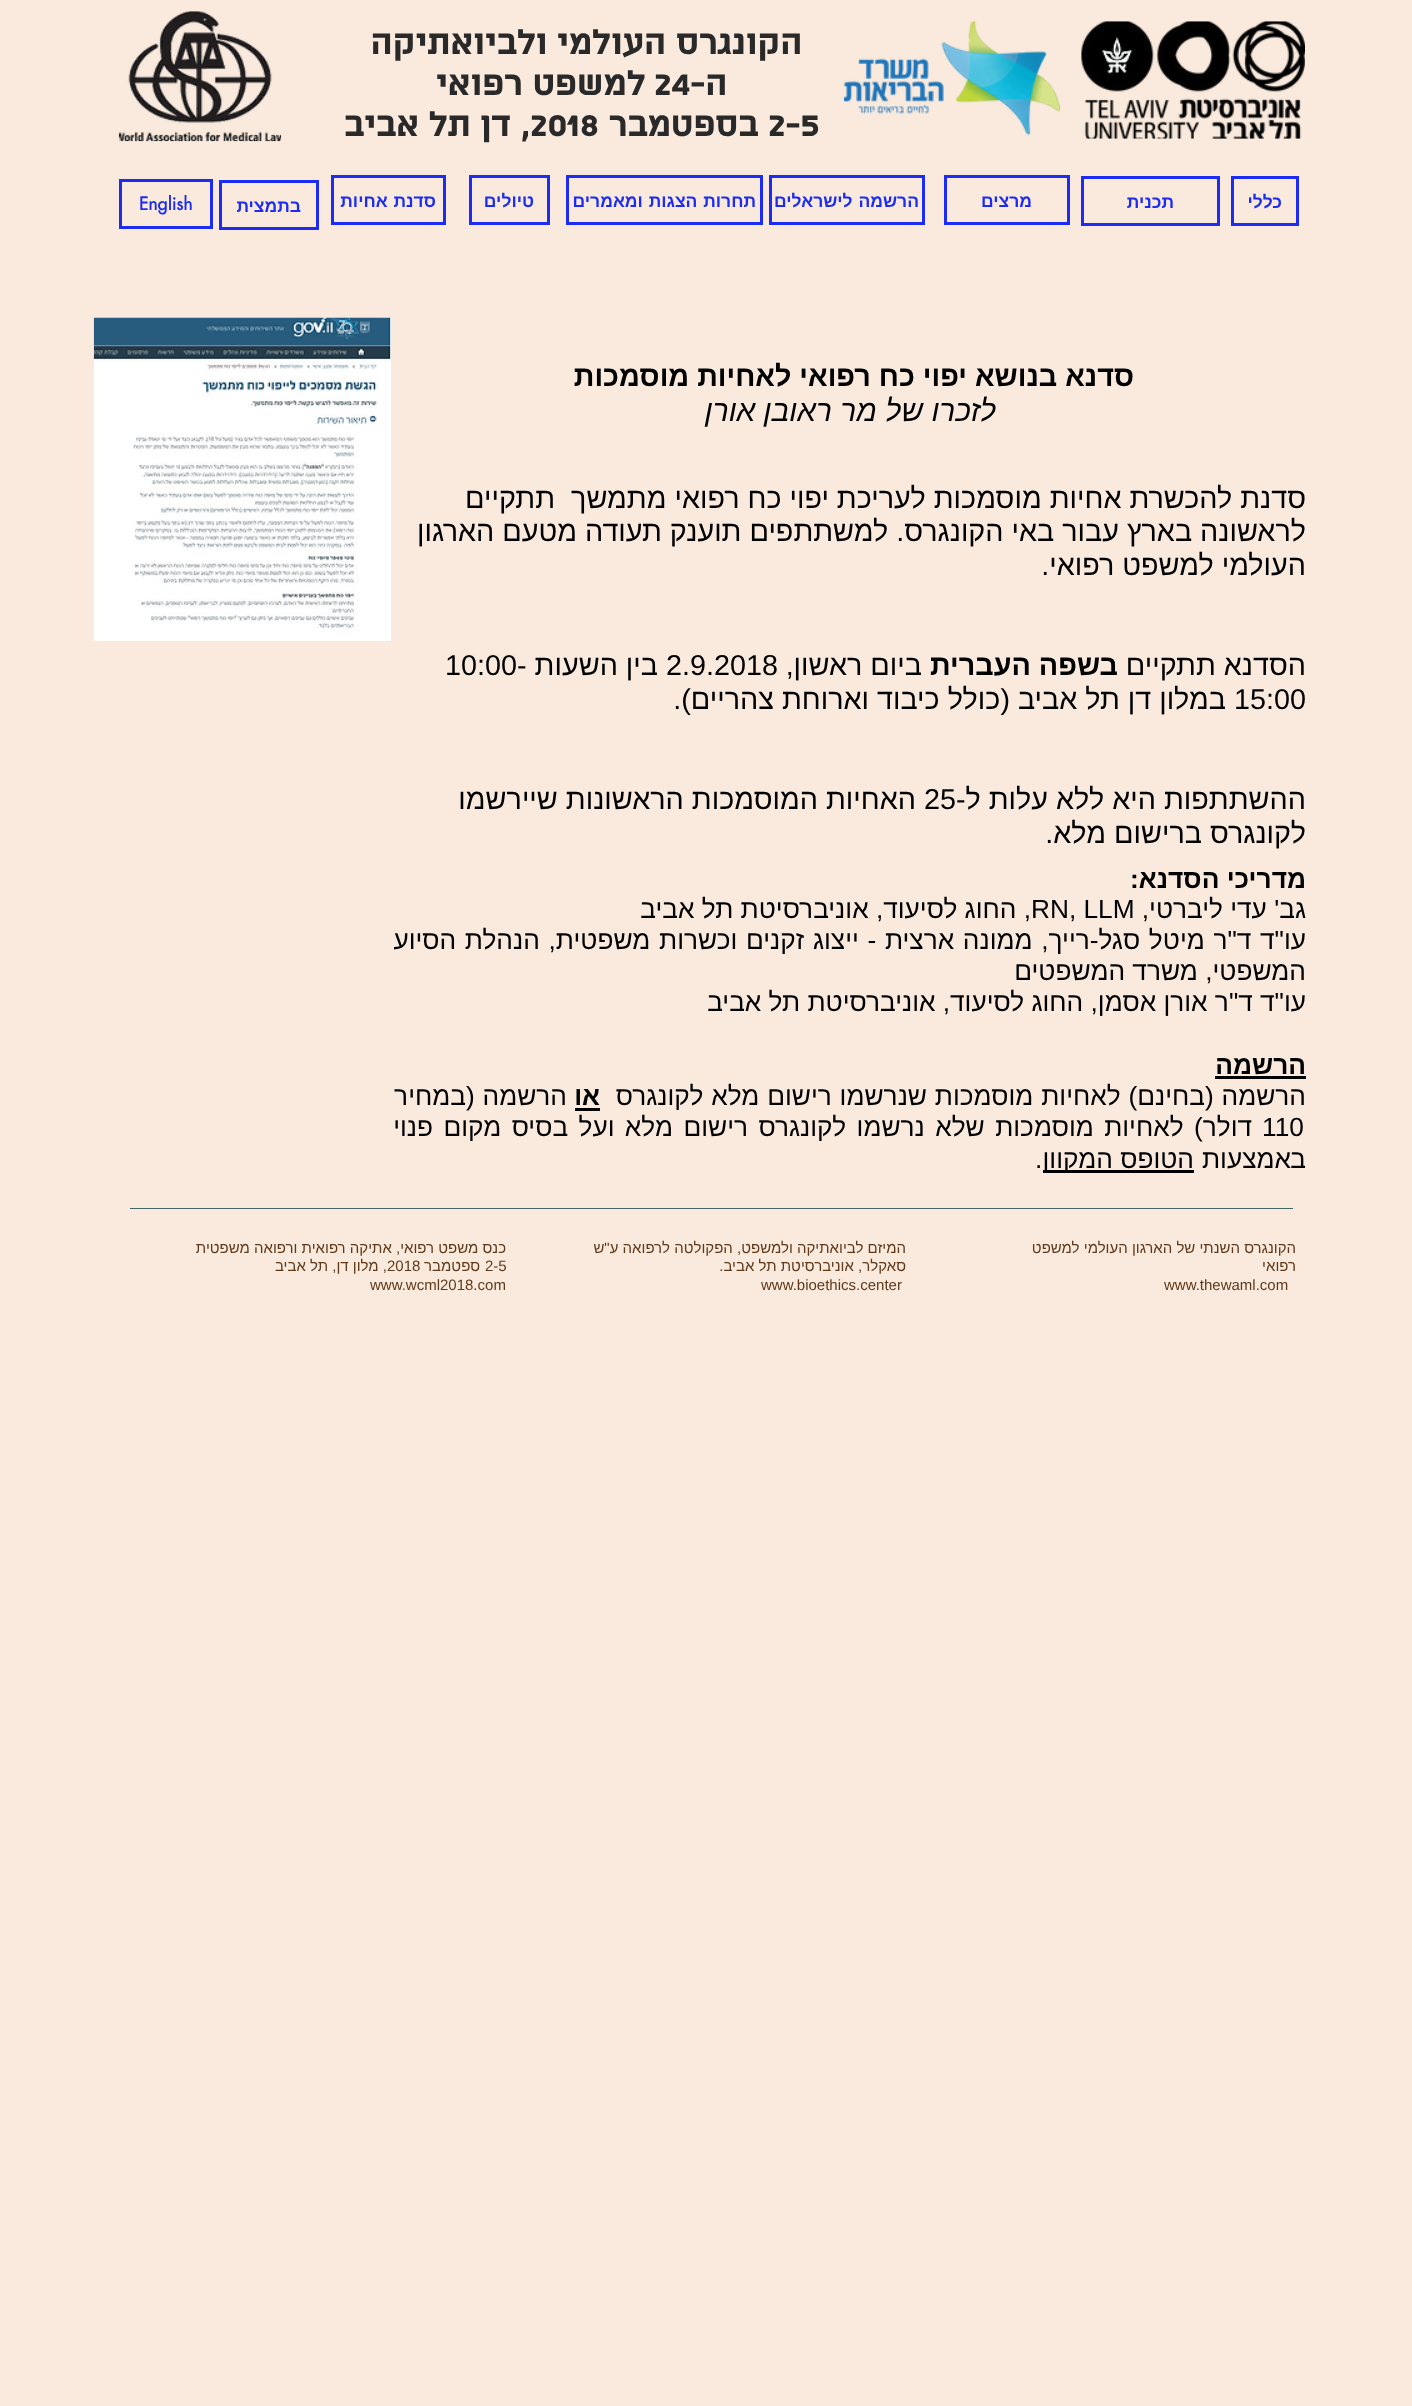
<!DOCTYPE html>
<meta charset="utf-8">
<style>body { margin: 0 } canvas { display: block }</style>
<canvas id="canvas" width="1412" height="2406"></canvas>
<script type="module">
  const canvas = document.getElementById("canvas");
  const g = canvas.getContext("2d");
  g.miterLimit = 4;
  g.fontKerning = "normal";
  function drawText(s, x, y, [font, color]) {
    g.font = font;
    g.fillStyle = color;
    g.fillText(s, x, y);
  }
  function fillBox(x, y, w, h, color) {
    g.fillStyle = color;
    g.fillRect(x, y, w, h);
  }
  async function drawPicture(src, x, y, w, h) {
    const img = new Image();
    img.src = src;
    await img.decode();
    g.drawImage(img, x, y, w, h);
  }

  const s1 = ["bold 37.5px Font", "#292929"];
  const s2 = ["bold 17.5px Liberation Sans", "#1D2CF3"];
  const s3 = ["bold 17.5px futura", "#1D2CF3"];
  const s4 = ["bold 28.75px Liberation Sans", "#000000"];
  const s5 = ["italic 30px Liberation Sans", "#000000"];
  const s6 = ["28.75px Liberation Sans", "#000000"];
  const s7 = ["bold 26.25px Liberation Sans", "#000000"];
  const s8 = ["26.25px Liberation Sans", "#000000"];
  const s9 = ["15px Liberation Sans", "#60391A"];

  fillBox(0, 0, 1412, 2406, "#F9EADD");
  await drawPicture("pic1.png", 1081, 21, 224, 118);
  await drawPicture("pic2.png", 843, 21, 217, 115);
  g.direction = "rtl";
  drawText("הקונגרס העולמי", 802, 54, s1);
  drawText("ולביואתיקה", 547, 54, s1);
  drawText("ה-", 727, 95, s1);
  g.direction = "ltr";
  drawText("24", 654, 95, s1);
  g.direction = "rtl";
  drawText("למשפט רפואי", 645, 95, s1);
  g.direction = "ltr";
  drawText("2-5", 768, 136, s1);
  g.direction = "rtl";
  drawText("בספטמבר", 758, 136, s1);
  g.direction = "ltr";
  drawText("2018", 530, 136, s1);
  g.direction = "rtl";
  drawText(", דן תל אביב", 530, 136, s1);
  await drawPicture("pic3.png", 118, 11, 164, 131);
  g.strokeStyle = "#1D2CF3";
  g.lineWidth = 3;
  g.strokeRect(1232.5, 177.5, 65, 47);
  drawText("כללי", 1282, 208, s2);
  g.strokeRect(1082.5, 177.5, 136, 47);
  drawText("תכנית", 1174, 208, s2);
  g.strokeRect(945.5, 176.5, 123, 47);
  drawText("מרצים", 1032, 207, s2);
  g.strokeRect(770.5, 176.5, 153, 47);
  g.wordSpacing = "1px";
  drawText("הרשמה לישראלים", 919, 207, s2);
  g.strokeRect(567.5, 176.5, 194, 47);
  drawText("תחרות הצגות ומאמרים", 756, 207, s2);
  g.strokeRect(470.5, 176.5, 78, 47);
  g.wordSpacing = "0px";
  drawText("טיולים", 534, 207, s2);
  g.strokeRect(332.5, 176.5, 112, 47);
  g.wordSpacing = "1px";
  drawText("סדנת אחיות", 436, 207, s2);
  g.strokeRect(220.5, 181.5, 97, 47);
  g.wordSpacing = "0px";
  drawText("בתמצית", 301, 212, s2);
  g.strokeRect(120.5, 180.5, 91, 47);
  g.direction = "ltr";
  drawText("English", 139, 210, s3);
  g.direction = "rtl";
  drawText("סדנא בנושא יפוי כח רפואי לאחיות מוסמכות", 1134, 386, s4);
  drawText("לזכרו של מר ראובן אורן", 996, 421, s5);
  drawText("סדנת להכשרת אחיות מוסמכות לעריכת יפוי כח רפואי מתמשך  תתקיים", 1306, 508, s6);
  drawText("לראשונה בארץ עבור באי הקונגרס. למשתתפים תוענק תעודה מטעם הארגון", 1306, 541, s6);
  drawText("העולמי למשפט רפואי.", 1306, 575, s6);
  drawText("הסדנא תתקיים", 1306, 675, s6);
  drawText("בשפה העברית", 1118, 675, s4);
  drawText("ביום ראשון,", 922, 675, s6);
  g.direction = "ltr";
  drawText("2.9.2018", 666, 675, s6);
  g.direction = "rtl";
  drawText("בין השעות", 658, 675, s6);
  g.direction = "ltr";
  drawText("10:00-", 445, 675, s6);
  drawText("15:00", 1234, 709, s6);
  g.direction = "rtl";
  drawText("במלון דן תל אביב (כולל כיבוד וארוחת צהריים).", 1226, 709, s6);
  drawText("ההשתתפות היא ללא עלות ל-", 1306, 809, s6);
  g.direction = "ltr";
  drawText("25", 924, 809, s6);
  g.direction = "rtl";
  drawText("האחיות המוסמכות הראשונות שיירשמו", 916, 809, s6);
  drawText("לקונגרס ברישום מלא.", 1306, 843, s6);
  drawText("מדריכי הסדנא:", 1306, 888, s7);
  drawText("גב' עדי ליברטי,", 1306, 918, s8);
  g.direction = "ltr";
  drawText("RN, LLM", 1031, 918, s8);
  g.direction = "rtl";
  drawText(", החוג לסיעוד, אוניברסיטת תל אביב", 1031, 918, s8);
  g.wordSpacing = "1.4px";
  drawText("עו\"ד ד\"ר מיטל סגל-רייך, ממונה ארצית - ייצוג זקנים וכשרות משפטית, הנהלת הסיוע", 1306, 949, s8);
  g.wordSpacing = "0px";
  drawText("המשפטי, משרד המשפטים", 1306, 980, s8);
  drawText("עו\"ד ד\"ר אורן אסמן, החוג לסיעוד, אוניברסיטת תל אביב", 1306, 1011, s8);
  drawText("הרשמה", 1306, 1074, s7);
  fillBox(1215, 1076, 91, 3, "#000000");
  g.wordSpacing = "0.5px";
  drawText("הרשמה (בחינם) לאחיות מוסמכות שנרשמו רישום מלא לקונגרס", 1306, 1105, s8);
  g.wordSpacing = "0px";
  drawText("או", 600, 1105, s7);
  fillBox(575, 1108, 25, 3, "#000000");
  g.wordSpacing = "0.5px";
  drawText("הרשמה (במחיר", 567, 1105, s8);
  g.wordSpacing = "0px";
  g.direction = "ltr";
  drawText("110", 1262, 1136, s8);
  g.wordSpacing = "3.1px";
  g.direction = "rtl";
  drawText("דולר) לאחיות מוסמכות שלא נרשמו לקונגרס רישום מלא ועל בסיס מקום פנוי", 1252, 1136, s8);
  g.wordSpacing = "0px";
  drawText("ב", 1306, 1168, s8);
  drawText("אמצעות", 1291, 1168, s8);
  fillBox(1043, 1170, 151, 3, "#000000");
  drawText("הטופס המקוון", 1194, 1168, s8);
  g.direction = "ltr";
  drawText(".", 1035, 1168, s8);
  await drawPicture("pic4.png", 93, 317, 298, 324);
  fillBox(130, 1208, 1163, 1, "#446666");
  g.direction = "rtl";
  drawText("הקונגרס השנתי של הארגון העולמי למשפט", 1296, 1253, s9);
  drawText("רפואי", 1296, 1271, s9);
  g.direction = "ltr";
  drawText("www.thewaml.com", 1164, 1290, s9);
  g.direction = "rtl";
  drawText("המיזם לביואתיקה ולמשפט, הפקולטה לרפואה ע\"ש", 906, 1253, s9);
  drawText("סאקלר, אוניברסיטת תל אביב.", 906, 1271, s9);
  g.direction = "ltr";
  drawText("www.bioethics.center", 761, 1290, s9);
  g.direction = "rtl";
  drawText("כנס משפט רפואי, אתיקה רפואית ורפואה משפטית", 506, 1253, s9);
  g.direction = "ltr";
  drawText("2-5", 485, 1271, s9);
  g.direction = "rtl";
  drawText("ספטמבר", 480, 1271, s9);
  g.direction = "ltr";
  drawText("2018", 387, 1271, s9);
  g.direction = "rtl";
  drawText(", מלון דן, תל אביב", 387, 1271, s9);
  g.direction = "ltr";
  drawText("www.wcml2018.com", 370, 1290, s9);
</script>
